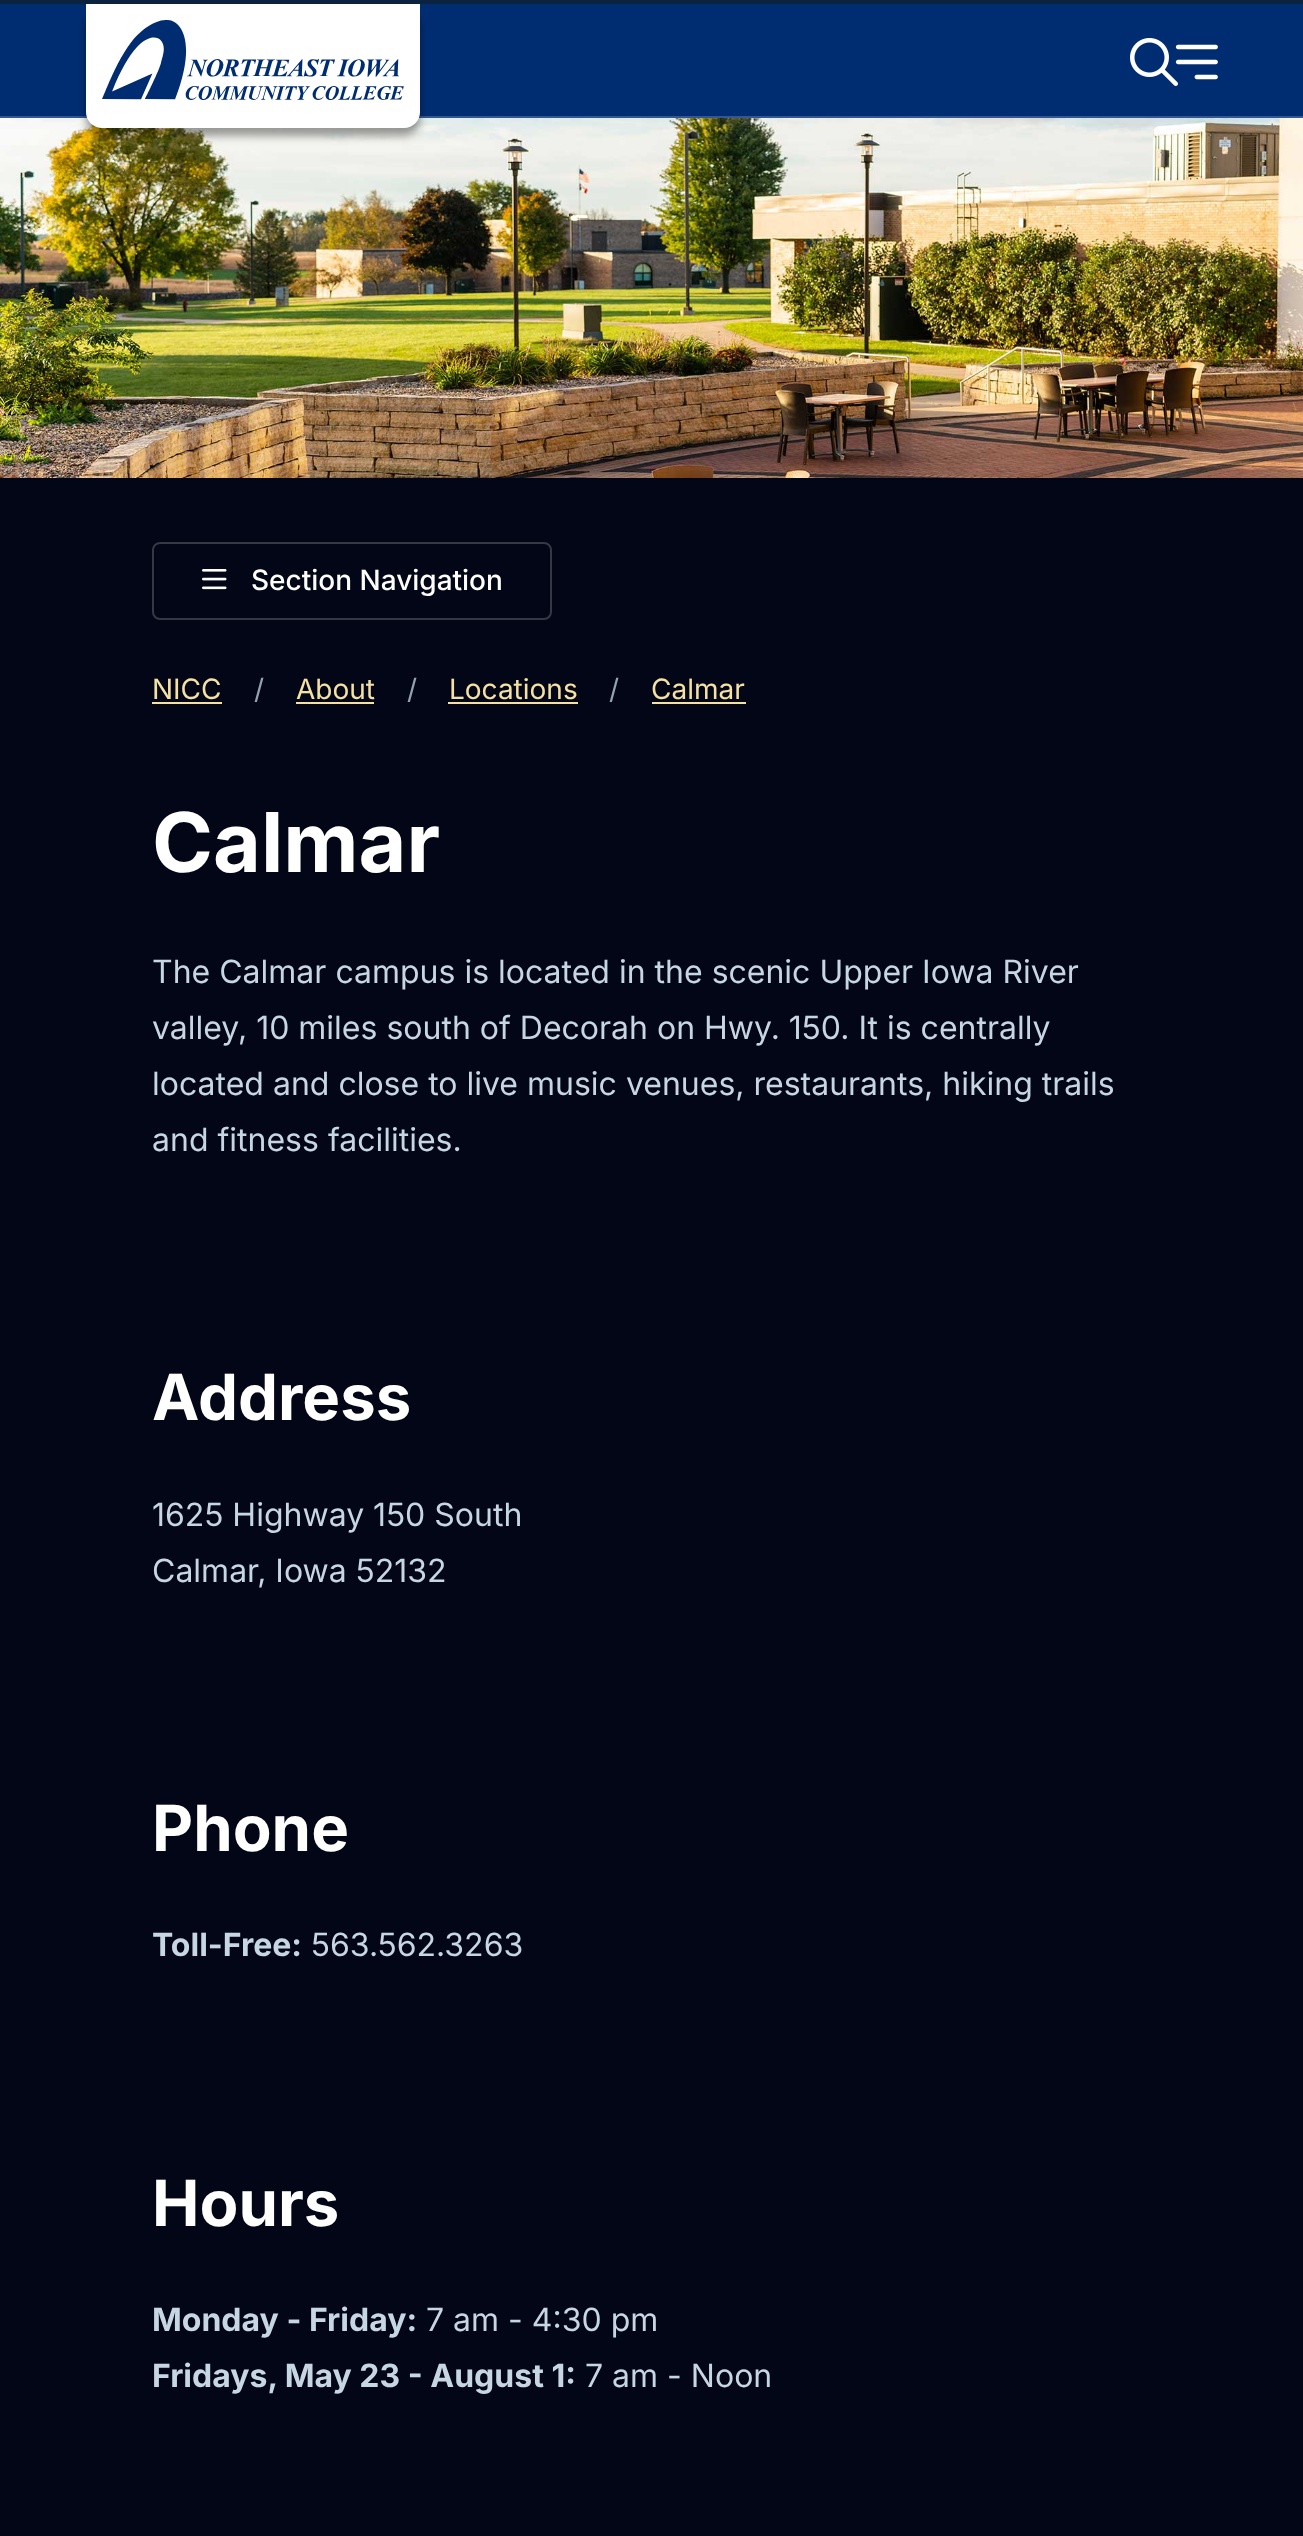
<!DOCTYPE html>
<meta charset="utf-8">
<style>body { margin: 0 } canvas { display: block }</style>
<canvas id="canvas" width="1303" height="2536"></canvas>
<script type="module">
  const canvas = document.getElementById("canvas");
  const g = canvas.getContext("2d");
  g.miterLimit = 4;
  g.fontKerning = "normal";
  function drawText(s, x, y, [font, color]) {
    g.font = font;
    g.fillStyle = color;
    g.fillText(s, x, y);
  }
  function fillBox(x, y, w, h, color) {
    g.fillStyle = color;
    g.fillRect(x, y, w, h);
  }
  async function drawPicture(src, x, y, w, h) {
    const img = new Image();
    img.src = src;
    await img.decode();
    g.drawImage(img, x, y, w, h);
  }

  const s1 = ["500 28px Inter", "#FFFFFF"];
  const s2 = ["28px Inter", "#F5E1A4"];
  const s3 = ["28px Inter", "#95A2B0"];
  const s4 = ["bold 82.5px Inter", "#FFFFFF"];
  const s5 = ["32px Inter", "#C6D6E3"];
  const s6 = ["bold 63.5px Inter", "#FFFFFF"];
  const s7 = ["bold 32px Inter", "#C6D6E3"];

  fillBox(0, 0, 1303, 2536, "#020617");
  fillBox(0, 4, 1303, 112, "#002D72");
  fillBox(0, 0, 1303, 4, "#0C2340");
  fillBox(0, 116, 1303, 2, "#33578E");
  await drawPicture("pic3.png", 0, 118, 1303, 360);
  g.fillStyle = "rgba(0, 0, 0, 0.38)";
  g.filter = "blur(4px)";
  g.beginPath();
  g.roundRect(86, 12, 334, 124, 16);
  g.fill();
  g.filter = "none";
  g.fillStyle = "#FFFFFF";
  g.beginPath();
  g.roundRect(86, 4, 334, 124, [0, 0, 16, 16]);
  g.fill();
  await drawPicture("pic1.png", 102, 20, 302, 80);
  await drawPicture("pic2.png", 1130, 38, 88, 48);
  g.beginPath();
  g.roundRect(153, 543, 398, 76, 7);
  g.strokeStyle = "#353845";
  g.lineWidth = 2;
  g.stroke();
  await drawPicture("pic4.png", 202, 569, 25, 21);
  drawText("Section Navigation", 251, 590, s1);
  drawText("NICC", 152, 699, s2);
  fillBox(152, 702, 70, 2, "#F5E1A4");
  drawText("/", 254, 699, s3);
  drawText("About", 296, 699, s2);
  fillBox(296, 702, 78, 2, "#F5E1A4");
  drawText("/", 407, 699, s3);
  drawText("Locations", 449, 699, s2);
  fillBox(448, 702, 130, 2, "#F5E1A4");
  drawText("/", 609, 699, s3);
  drawText("Calmar", 651, 699, s2);
  fillBox(652, 702, 94, 2, "#F5E1A4");
  drawText("Calmar", 152, 872, s4);
  drawText("The Calmar campus is located in the scenic Upper Iowa River", 152, 983, s5);
  drawText("valley, 10 miles south of Decorah on Hwy. 150. It is centrally", 152, 1039, s5);
  drawText("located and close to live music venues, restaurants, hiking trails", 152, 1095, s5);
  drawText("and fitness facilities.", 152, 1151, s5);
  drawText("Address", 152, 1420, s6);
  drawText("1625 Highway 150 South", 152, 1526, s5);
  drawText("Calmar, Iowa 52132", 152, 1582, s5);
  drawText("Phone", 152, 1851, s6);
  drawText("Toll-Free:", 152, 1956, s7);
  drawText("563.562.3263", 311, 1956, s5);
  drawText("Hours", 152, 2226, s6);
  drawText("Monday - Friday:", 152, 2331, s7);
  drawText("7 am - 4:30 pm", 426, 2331, s5);
  drawText("Fridays, May 23 - August 1:", 152, 2387, s7);
  drawText("7 am - Noon", 585, 2387, s5);
</script>
